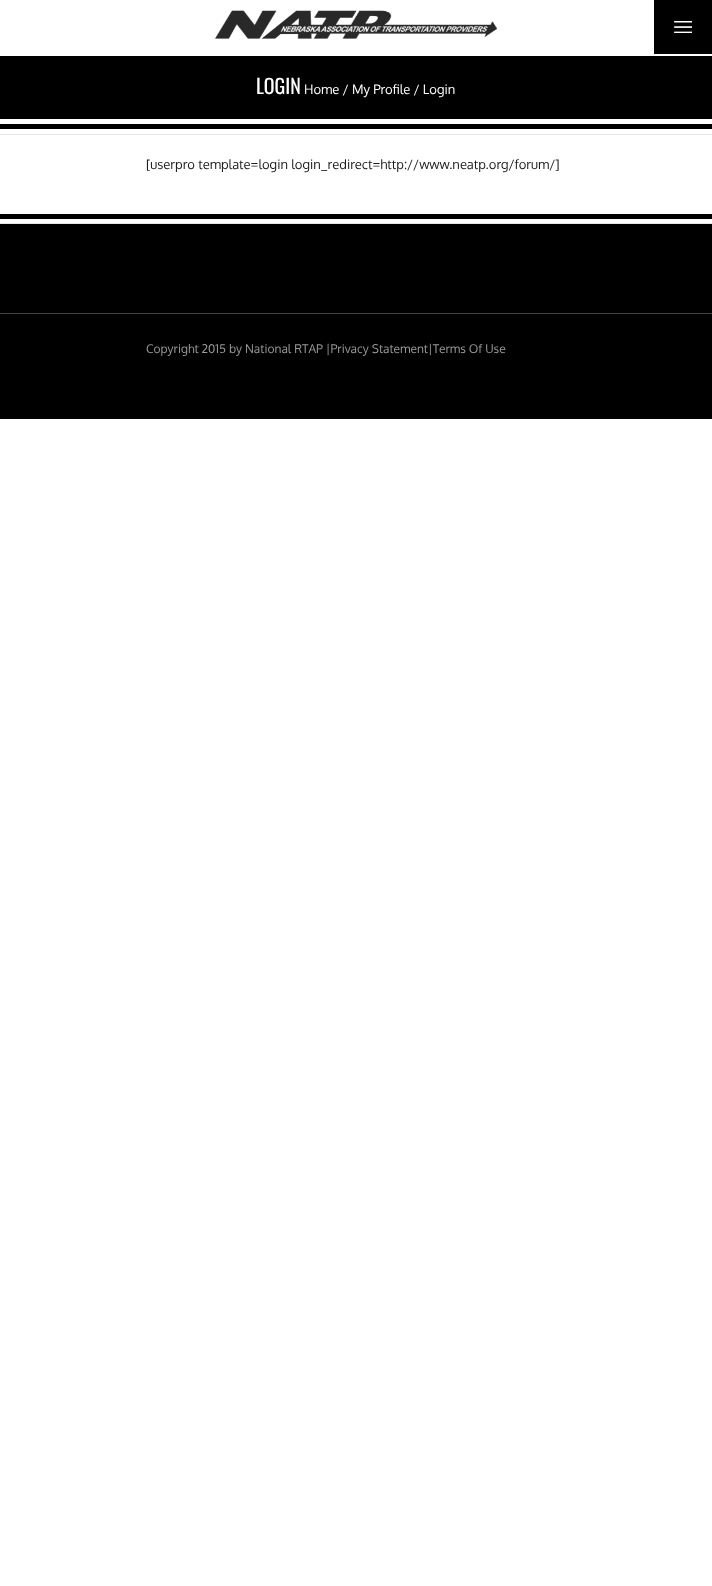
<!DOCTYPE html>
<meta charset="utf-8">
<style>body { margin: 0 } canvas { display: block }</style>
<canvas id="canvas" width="712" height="1586"></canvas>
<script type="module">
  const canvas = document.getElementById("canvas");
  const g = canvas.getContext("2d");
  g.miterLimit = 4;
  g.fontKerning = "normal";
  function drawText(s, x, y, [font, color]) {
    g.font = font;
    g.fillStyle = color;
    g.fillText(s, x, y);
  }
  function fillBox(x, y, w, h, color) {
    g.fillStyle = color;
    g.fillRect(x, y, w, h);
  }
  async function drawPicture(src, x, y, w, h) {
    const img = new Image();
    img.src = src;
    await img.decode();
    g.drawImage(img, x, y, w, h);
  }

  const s1 = ["20px Oswald", "#FFFFFF"];
  const s2 = ["13px Oxygen", "#FFFFFF"];
  const s3 = ["13px Oxygen", "#1C1C1C"];
  const s4 = ["12px Oxygen", "#999999"];

  fillBox(0, 0, 712, 1586, "#FFFFFF");
  await drawPicture("pic1.png", 214, 10, 283, 29);
  fillBox(654, 0, 58, 54, "#000000");
  await drawPicture("pic2.png", 674, 21, 18, 12);
  fillBox(0, 56, 712, 63, "#000000");
  drawText("LOGIN", 256, 94, s1);
  drawText("Home / My Profile / Login", 304, 94, s2);
  fillBox(0, 124, 712, 5, "#000000");
  fillBox(0, 134, 712, 1, "#E5E5E5");
  drawText("[userpro template=login login_redirect=http://www.neatp.org/forum/]", 146, 169, s3);
  fillBox(0, 224, 712, 89, "#000000");
  fillBox(0, 214, 712, 5, "#000000");
  fillBox(0, 223, 712, 1, "#E5E5E5");
  fillBox(0, 314, 712, 105, "#000000");
  fillBox(0, 313, 712, 1, "#444444");
  drawText("Copyright 2015 by National RTAP |Privacy Statement|Terms Of Use", 146, 353, s4);
</script>
